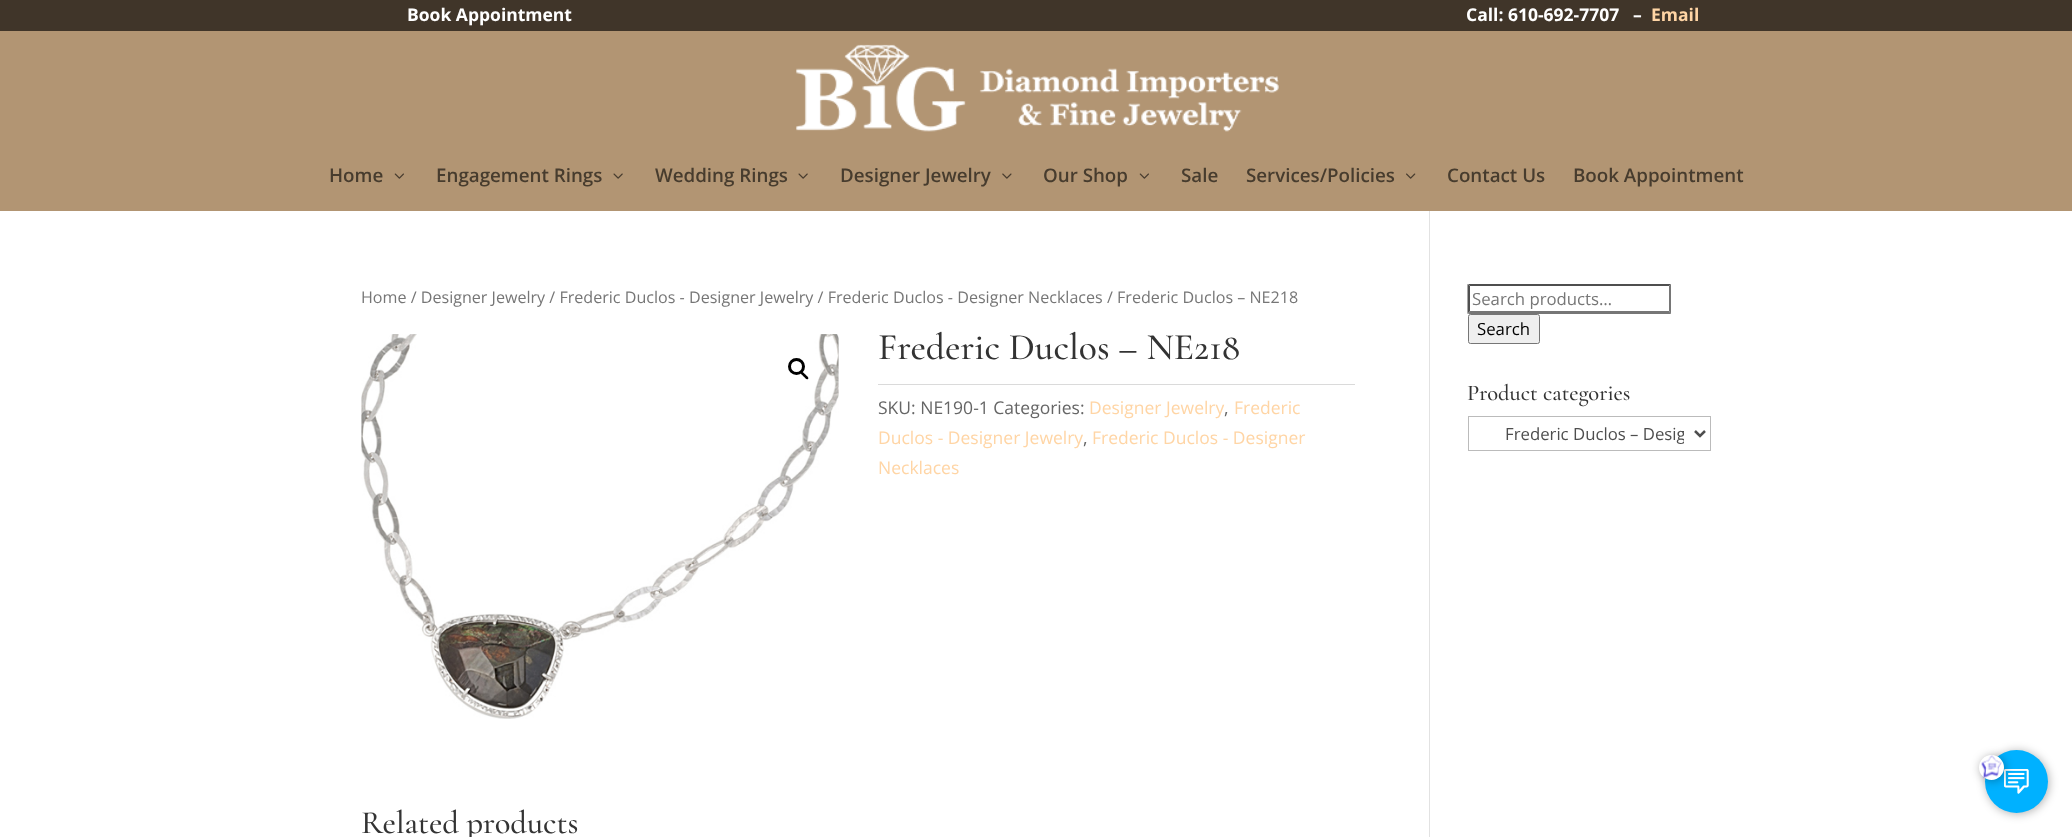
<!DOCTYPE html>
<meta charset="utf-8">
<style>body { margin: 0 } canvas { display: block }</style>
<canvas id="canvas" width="2072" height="837"></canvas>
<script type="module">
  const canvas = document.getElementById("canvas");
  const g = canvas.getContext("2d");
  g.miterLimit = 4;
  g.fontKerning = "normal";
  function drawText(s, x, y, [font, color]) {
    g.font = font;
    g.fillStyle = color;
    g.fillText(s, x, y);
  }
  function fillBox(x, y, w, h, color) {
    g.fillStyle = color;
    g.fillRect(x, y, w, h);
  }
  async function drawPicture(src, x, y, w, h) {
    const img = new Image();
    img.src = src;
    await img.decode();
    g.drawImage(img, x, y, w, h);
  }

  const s1 = ["bold 17.5px Open Sans", "#FFFFFF"];
  const s2 = ["bold 17.5px Open Sans", "#FFD5A5"];
  const s3 = ["600 18.75px Open Sans", "#473C2E"];
  const s4 = ["16.1px Open Sans", "#767676"];
  const s5 = ["300 37.5px Cormorant Garamond", "#333333"];
  const s6 = ["17.5px Open Sans", "#666666"];
  const s7 = ["17.5px Open Sans", "#FFD5A5"];
  const s8 = ["300 32.5px Cormorant Garamond", "#333333"];
  const s9 = ["16.75px Open Sans", "#767676"];
  const s10 = ["16.75px Open Sans", "#000000"];
  const s11 = ["300 22.5px Cormorant Garamond", "#333333"];
  const s12 = ["16.75px Open Sans", "#4E4E4E"];

  fillBox(0, 0, 2072, 837, "#FFFFFF");
  fillBox(0, 0, 2072, 31, "#403529");
  drawText("Book Appointment", 407, 21, s1);
  drawText("Call: 610-692-7707   –", 1466, 21, s1);
  drawText("Email", 1651, 21, s2);
  fillBox(0, 31, 2072, 180, "#B29573");
  await drawPicture("pic1.png", 796, 44, 483, 88);
  drawText("Home", 329, 182, s3);
  await drawPicture("pic2.png", 394, 173, 10, 6);
  drawText("Engagement Rings", 436, 182, s3);
  await drawPicture("pic3.png", 613, 173, 10, 6);
  drawText("Wedding Rings", 655, 182, s3);
  await drawPicture("pic3.png", 798, 173, 10, 6);
  drawText("Designer Jewelry", 840, 182, s3);
  await drawPicture("pic4.png", 1002, 173, 10, 6);
  drawText("Our Shop", 1043, 182, s3);
  await drawPicture("pic2.png", 1139, 173, 10, 6);
  drawText("Sale", 1181, 182, s3);
  drawText("Services/Policies", 1246, 182, s3);
  await drawPicture("pic5.png", 1406, 173, 10, 6);
  drawText("Contact Us", 1447, 182, s3);
  drawText("Book Appointment", 1573, 182, s3);
  fillBox(1429, 211, 1, 626, "#E2E2E2");
  drawText("Home / Designer Jewelry / Frederic Duclos - Designer Jewelry / Frederic Duclos - Designer Necklaces / Frederic Duclos – NE218", 361, 303, s4);
  await drawPicture("pic6.png", 361, 334, 478, 385);
  g.fillStyle = "#FFFFFF";
  g.beginPath();
  g.arc(798.5, 368.5, 22.5, 0, Math.PI * 2);
  g.fill();
  g.beginPath();
  g.arc(796.5, 366.5, 7, 0, Math.PI * 2);
  g.strokeStyle = "#000000";
  g.lineWidth = 3;
  g.stroke();
  g.fillStyle = "#000000";
  g.beginPath();
  g.moveTo(801, 372);
  g.bezierCurveTo(802.5, 370.5, 804.5, 374, 805.5, 374.5);
  g.bezierCurveTo(806, 375.5, 809.5, 377.5, 808, 379);
  g.bezierCurveTo(806.5, 380.5, 804.5, 377, 803.5, 376.5);
  g.bezierCurveTo(803, 375.5, 799.5, 373.5, 801, 372);
  g.closePath();
  g.fill();
  drawText("Frederic Duclos – NE218", 878, 359, s5);
  fillBox(878, 384, 477, 1, "#DADADA");
  drawText("SKU: NE190-1 Categories:", 878, 414, s6);
  drawText("Designer Jewelry", 1089, 414, s7);
  drawText(",", 1224, 414, s6);
  drawText("Frederic", 1234, 414, s7);
  drawText("Duclos - Designer Jewelry", 878, 444, s7);
  drawText(",", 1083, 444, s6);
  drawText("Frederic Duclos - Designer", 1092, 444, s7);
  drawText("Necklaces", 878, 474, s7);
  drawText("Related products", 361, 833, s8);
  g.fillStyle = "#4F4F4F";
  g.beginPath();
  g.moveTo(1468, 284);
  g.lineTo(1671, 284);
  g.lineTo(1669, 286);
  g.lineTo(1470, 286);
  g.closePath();
  g.fill();
  g.fillStyle = "#767676";
  g.beginPath();
  g.moveTo(1671, 284);
  g.lineTo(1671, 314);
  g.lineTo(1669, 311);
  g.lineTo(1669, 286);
  g.closePath();
  g.fill();
  g.beginPath();
  g.moveTo(1671, 314);
  g.lineTo(1468, 314);
  g.lineTo(1470, 311);
  g.lineTo(1669, 311);
  g.closePath();
  g.fill();
  g.fillStyle = "#4F4F4F";
  g.beginPath();
  g.moveTo(1467.5, 314);
  g.lineTo(1467.5, 284);
  g.lineTo(1470, 286);
  g.lineTo(1470, 311);
  g.closePath();
  g.fill();
  drawText("Search products…", 1472, 305, s9);
  g.fillStyle = "#EFEFEF";
  g.beginPath();
  g.roundRect(1468.5, 314.5, 71, 29, 2);
  g.fill();
  g.strokeStyle = "#767676";
  g.lineWidth = 1;
  g.stroke();
  drawText("Search", 1477, 335, s10);
  drawText("Product categories", 1467, 400, s11);
  g.strokeStyle = "#BBBBBB";
  g.strokeRect(1468.5, 416.5, 242, 34);
  g.beginPath();
  g.moveTo(1695, 431);
  g.lineTo(1700, 436);
  g.lineTo(1705, 431);
  g.strokeStyle = "#4E4E4E";
  g.lineWidth = 2.5;
  g.stroke();
  g.save();
  g.beginPath();
  g.rect(1480, 421, 204, 25);
  g.clip();
  drawText("Frederic Duclos – Desig", 1505, 440, s12);
  g.restore();
  g.fillStyle = "rgba(0, 0, 0, 0.31)";
  g.filter = "blur(5px)";
  g.beginPath();
  g.roundRect(1986, 751, 63, 63, 31.5);
  g.fill();
  g.filter = "none";
  g.fillStyle = "#00B1FF";
  g.beginPath();
  g.arc(2016.5, 781.5, 31.5, 0, Math.PI * 2);
  g.fill();
  await drawPicture("pic8.png", 2004, 769, 25, 25);
  g.fillStyle = "rgba(0, 0, 0, 0.31)";
  g.filter = "blur(5px)";
  g.beginPath();
  g.roundRect(1980, 756, 25, 25, 12.5);
  g.fill();
  g.filter = "none";
  g.fillStyle = "#FFFFFF";
  g.beginPath();
  g.arc(1991.5, 767.5, 12.5, 0, Math.PI * 2);
  g.fill();
  await drawPicture("pic7.png", 1981, 755, 21, 24);
</script>
